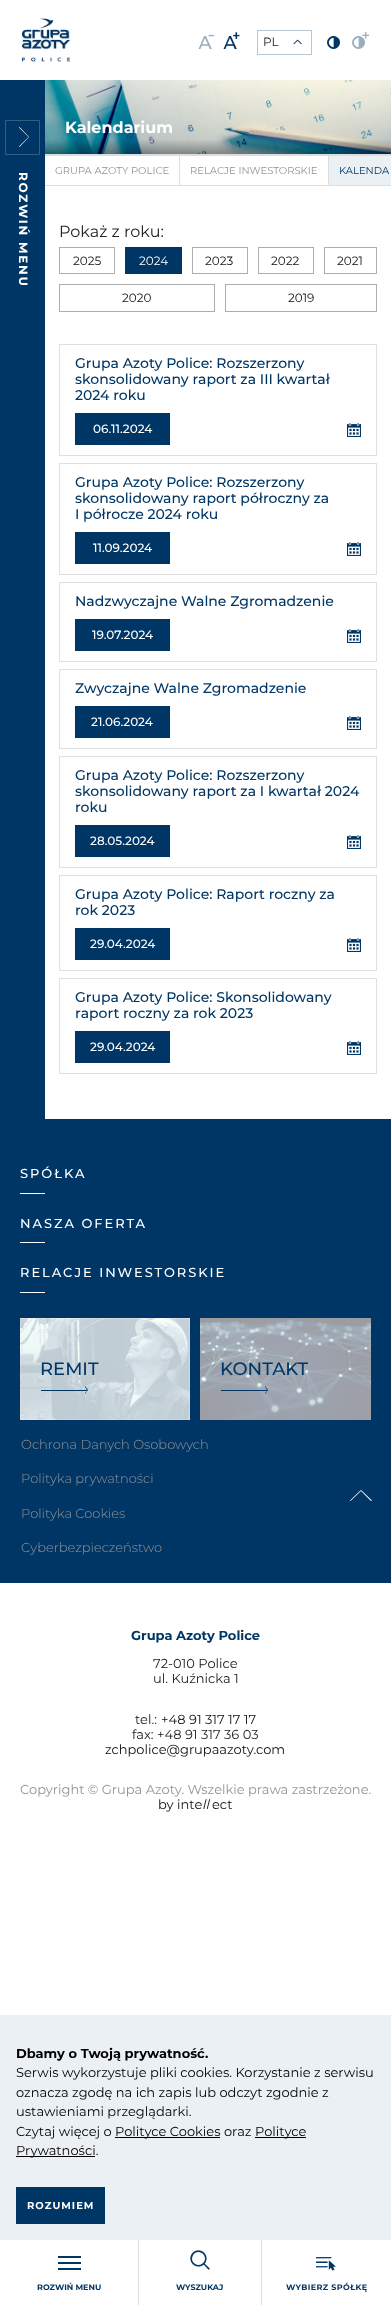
<!DOCTYPE html>
<meta charset="utf-8">
<style>body { margin: 0 } canvas { display: block }</style>
<canvas id="canvas" width="391" height="2305"></canvas>
<script type="module">
  const canvas = document.getElementById("canvas");
  const g = canvas.getContext("2d");
  g.miterLimit = 4;
  g.fontKerning = "normal";
  function drawText(s, x, y, [font, color]) {
    g.font = font;
    g.fillStyle = color;
    g.fillText(s, x, y);
  }
  function fillBox(x, y, w, h, color) {
    g.fillStyle = color;
    g.fillRect(x, y, w, h);
  }
  async function drawPicture(src, x, y, w, h) {
    const img = new Image();
    img.src = src;
    await img.decode();
    g.drawImage(img, x, y, w, h);
  }

  const s1 = ["12px Montserrat", "#222222"];
  const s2 = ["bold 8px Montserrat", "#003665"];
  const s3 = ["bold 16px Montserrat", "#FFFFFF"];
  const s4 = ["10px Montserrat", "#949494"];
  const s5 = ["10px Montserrat", "#003665"];
  const s6 = ["16px Montserrat", "#222222"];
  const s7 = ["12px Montserrat", "#111111"];
  const s8 = ["12px Montserrat", "#FFFFFF"];
  const s9 = ["500 14px Montserrat", "#003665"];
  const s10 = ["500 12px Montserrat", "#FFFFFF"];
  const s11 = ["500 13px Montserrat", "#FFFFFF"];
  const s12 = ["500 18px Montserrat", "#003665"];
  const s13 = ["300 13px Montserrat", "#949494"];
  const s14 = ["bold 13px Montserrat", "#003665"];
  const s15 = ["13px Montserrat", "#222222"];
  const s16 = ["13px Montserrat", "#111111"];
  const s17 = ["13px Montserrat", "#949494"];
  const s18 = ["italic 13px Montserrat", "#111111"];
  const s19 = ["bold 13px Montserrat", "#000000"];
  const s20 = ["13px Montserrat", "#000000"];
  const s21 = ["bold 10px Montserrat", "#FFFFFF"];

  fillBox(0, 0, 391, 2305, "#FFFFFF");
  await drawPicture("pic1.png", 22, 18, 48, 44);
  await drawPicture("pic2.png", 198, 34, 16, 15);
  await drawPicture("pic3.png", 223, 32, 17, 17);
  g.strokeStyle = "#B6C6D4";
  g.strokeRect(257.5, 30.5, 54, 24);
  drawText("PL", 263, 46, s1);
  await drawPicture("pic4.png", 293, 39, 9, 6);
  await drawPicture("pic5.png", 327, 36, 13, 13);
  await drawPicture("pic6.png", 352, 32, 17, 17);
  fillBox(138, 2240, 1, 65, "#DDDDDD");
  fillBox(58, 2256, 23, 2, "#003665");
  fillBox(58, 2262, 23, 2, "#003665");
  fillBox(58, 2268, 23, 2, "#003665");
  drawText("ROZWIŃ MENU", 37, 2290, s2);
  await drawPicture("pic7.png", 190, 2250, 20, 20);
  drawText("WYSZUKAJ", 176, 2290, s2);
  fillBox(261, 2239, 1, 66, "#DDDDDD");
  await drawPicture("pic8.png", 316, 2257, 20, 14);
  g.letterSpacing = "0.4px";
  drawText("WYBIERZ SPÓŁKĘ", 286, 2290, s2);
  fillBox(0, 80, 45, 1039, "#003665");
  g.beginPath();
  g.moveTo(5.5, 154.5);
  g.lineTo(5.5, 120.5);
  g.lineTo(39.5, 120.5);
  g.lineTo(39.5, 154.5);
  g.closePath();
  g.strokeStyle = "#335E84";
  g.stroke();
  g.fillStyle = "#FFFFFF";
  g.beginPath();
  g.moveTo(19, 127.5);
  g.lineTo(28.5, 137);
  g.lineTo(19, 146.5);
  g.lineTo(19.5, 147);
  g.lineTo(29, 137);
  g.lineTo(19.5, 127);
  g.closePath();
  g.fill();
  g.letterSpacing = "1.75px";
  g.font = "bold 12px Montserrat";
  g.save();
  g.translate(19, 172);
  g.rotate(90 * Math.PI / 180);
  g.fillText("ROZWIŃ MENU", 0, 0);
  g.restore();
  await drawPicture("pic9.png", 45, 80, 346, 74);
  g.letterSpacing = "0px";
  drawText("Kalendarium", 65, 133, s3);
  fillBox(45, 154, 346, 1, "#DDDDDD");
  fillBox(45, 185, 346, 1, "#DDDDDD");
  fillBox(45, 155, 346, 1, "#DDDDDD");
  fillBox(179, 155, 1, 30, "#DDDDDD");
  drawText("GRUPA AZOTY POLICE", 55, 174, s4);
  fillBox(328, 155, 1, 30, "#DDDDDD");
  drawText("RELACJE INWESTORSKIE", 190, 174, s4);
  fillBox(329, 156, 62, 29, "#EBF0F4");
  drawText("KALENDA", 339, 174, s5);
  drawText("Pokaż z roku:", 59, 237, s6);
  g.strokeStyle = "#ADADAF";
  g.strokeRect(59.5, 247.5, 55, 26);
  drawText("2025", 73, 265, s7);
  fillBox(125, 247, 57, 27, "#003665");
  drawText("2024", 139, 265, s8);
  g.strokeRect(192.5, 247.5, 55, 26);
  drawText("2023", 205, 265, s7);
  g.strokeRect(258.5, 247.5, 55, 26);
  drawText("2022", 271, 265, s7);
  g.strokeRect(324.5, 247.5, 52, 26);
  drawText("2021", 337, 265, s7);
  g.strokeRect(59.5, 284.5, 155, 27);
  drawText("2020", 122, 302, s7);
  g.strokeRect(225.5, 284.5, 151, 27);
  drawText("2019", 288, 302, s7);
  g.strokeStyle = "#E0E0E0";
  g.strokeRect(59.5, 344.5, 317, 111);
  drawText("Grupa Azoty Police: Rozszerzony", 75, 368, s9);
  drawText("skonsolidowany raport za III kwartał", 75, 384, s9);
  drawText("2024 roku", 75, 400, s9);
  fillBox(75, 413, 95, 32, "#003665");
  drawText("06.11.2024", 93, 433, s10);
  await drawPicture("pic10.png", 347, 423, 14, 14);
  g.strokeRect(59.5, 463.5, 317, 111);
  drawText("Grupa Azoty Police: Rozszerzony", 75, 487, s9);
  drawText("skonsolidowany raport półroczny za", 75, 503, s9);
  drawText("I półrocze 2024 roku", 75, 519, s9);
  fillBox(75, 532, 95, 32, "#003665");
  drawText("11.09.2024", 93, 552, s10);
  await drawPicture("pic10.png", 347, 542, 14, 14);
  g.strokeRect(59.5, 582.5, 317, 79);
  drawText("Nadzwyczajne Walne Zgromadzenie", 75, 606, s9);
  fillBox(75, 619, 95, 32, "#003665");
  drawText("19.07.2024", 92, 639, s10);
  await drawPicture("pic10.png", 347, 629, 14, 14);
  g.strokeRect(59.5, 669.5, 317, 79);
  drawText("Zwyczajne Walne Zgromadzenie", 75, 693, s9);
  fillBox(75, 706, 95, 32, "#003665");
  drawText("21.06.2024", 91, 726, s10);
  await drawPicture("pic10.png", 347, 716, 14, 14);
  g.strokeRect(59.5, 756.5, 317, 111);
  drawText("Grupa Azoty Police: Rozszerzony", 75, 780, s9);
  drawText("skonsolidowany raport za I kwartał 2024", 75, 796, s9);
  drawText("roku", 75, 812, s9);
  fillBox(75, 825, 95, 32, "#003665");
  drawText("28.05.2024", 90, 845, s10);
  await drawPicture("pic10.png", 347, 835, 14, 14);
  g.strokeRect(59.5, 875.5, 317, 95);
  drawText("Grupa Azoty Police: Raport roczny za", 75, 899, s9);
  drawText("rok 2023", 75, 915, s9);
  fillBox(75, 928, 95, 32, "#003665");
  drawText("29.04.2024", 90, 948, s10);
  await drawPicture("pic10.png", 347, 938, 14, 14);
  g.strokeRect(59.5, 978.5, 317, 95);
  drawText("Grupa Azoty Police: Skonsolidowany", 75, 1002, s9);
  drawText("raport roczny za rok 2023", 75, 1018, s9);
  fillBox(75, 1031, 95, 32, "#003665");
  drawText("29.04.2024", 90, 1051, s10);
  await drawPicture("pic10.png", 347, 1041, 14, 14);
  fillBox(0, 1119, 391, 464, "#003665");
  g.letterSpacing = "1.95px";
  drawText("SPÓŁKA", 20, 1178, s11);
  fillBox(20, 1193, 25, 1, "#FFFFFF");
  drawText("NASZA OFERTA", 20, 1228, s11);
  fillBox(20, 1242, 25, 1, "#FFFFFF");
  drawText("RELACJE INWESTORSKIE", 20, 1277, s11);
  fillBox(20, 1292, 25, 1, "#FFFFFF");
  await drawPicture("pic11.png", 20, 1318, 170, 102);
  g.letterSpacing = "0px";
  drawText("REMIT", 40, 1375, s12);
  g.beginPath();
  g.moveTo(85, 1386);
  g.lineTo(85, 1387);
  g.lineTo(87, 1390);
  g.lineTo(41, 1390);
  g.lineTo(41, 1391);
  g.lineTo(87, 1391);
  g.lineTo(85, 1393);
  g.lineTo(85, 1394);
  g.lineTo(88, 1390);
  g.closePath();
  g.fill();
  await drawPicture("pic12.png", 200, 1318, 171, 102);
  drawText("KONTAKT", 220, 1375, s12);
  g.beginPath();
  g.moveTo(265, 1386);
  g.lineTo(265, 1387);
  g.lineTo(267, 1390);
  g.lineTo(221, 1390);
  g.lineTo(221, 1391);
  g.lineTo(267, 1391);
  g.lineTo(265, 1393);
  g.lineTo(265, 1394);
  g.lineTo(268, 1390);
  g.closePath();
  g.fill();
  drawText("Ochrona Danych Osobowych", 21, 1449, s13);
  drawText("Polityka prywatności", 21, 1483, s13);
  drawText("Polityka Cookies", 21, 1518, s13);
  drawText("Cyberbezpieczeństwo", 21, 1552, s13);
  g.fillStyle = "#FFFFFF";
  g.beginPath();
  g.moveTo(350.5, 1501);
  g.lineTo(361, 1491);
  g.lineTo(371, 1501);
  g.lineTo(372, 1500.5);
  g.lineTo(361, 1490);
  g.lineTo(350, 1500.5);
  g.closePath();
  g.fill();
  drawText("Grupa Azoty Police", 131, 1640, s14);
  drawText("72-010 Police", 153, 1668, s15);
  drawText("ul. Kuźnicka 1", 153, 1683, s15);
  drawText("tel.:", 135, 1724, s15);
  drawText("+48 91 317 17 17", 161, 1724, s16);
  drawText("fax: +48 91 317 36 03", 132, 1739, s15);
  drawText("zchpolice@grupaazoty.com", 105, 1754, s16);
  drawText("Copyright © Grupa Azoty. Wszelkie prawa zastrzeżone.", 20, 1794, s17);
  drawText("by inte", 158, 1809, s16);
  drawText("ll", 202, 1809, s18);
  drawText("ect", 212, 1809, s16);
  fillBox(0, 2015, 391, 225, "#EBF0F4");
  drawText("Dbamy o Twoją prywatność.", 16, 2058, s19);
  drawText("Serwis wykorzystuje pliki cookies. Korzystanie z serwisu", 16, 2077, s20);
  drawText("oznacza zgodę na ich zapis lub odczyt zgodnie z", 16, 2097, s20);
  drawText("ustawieniami przeglądarki.", 16, 2116, s20);
  drawText("Czytaj więcej o", 16, 2136, s20);
  fillBox(115, 2137, 36, 1, "#000000");
  drawText("Polityce Cookies oraz", 115, 2136, s20);
  fillBox(151, 2137, 69, 1, "#000000");
  fillBox(255, 2137, 51, 1, "#000000");
  drawText("Polityce", 255, 2136, s20);
  fillBox(16, 2156, 79, 1, "#000000");
  drawText("Prywatności.", 16, 2155, s20);
  fillBox(16, 2187, 89, 37, "#003665");
  g.letterSpacing = "1px";
  drawText("ROZUMIEM", 27, 2209, s21);
</script>
